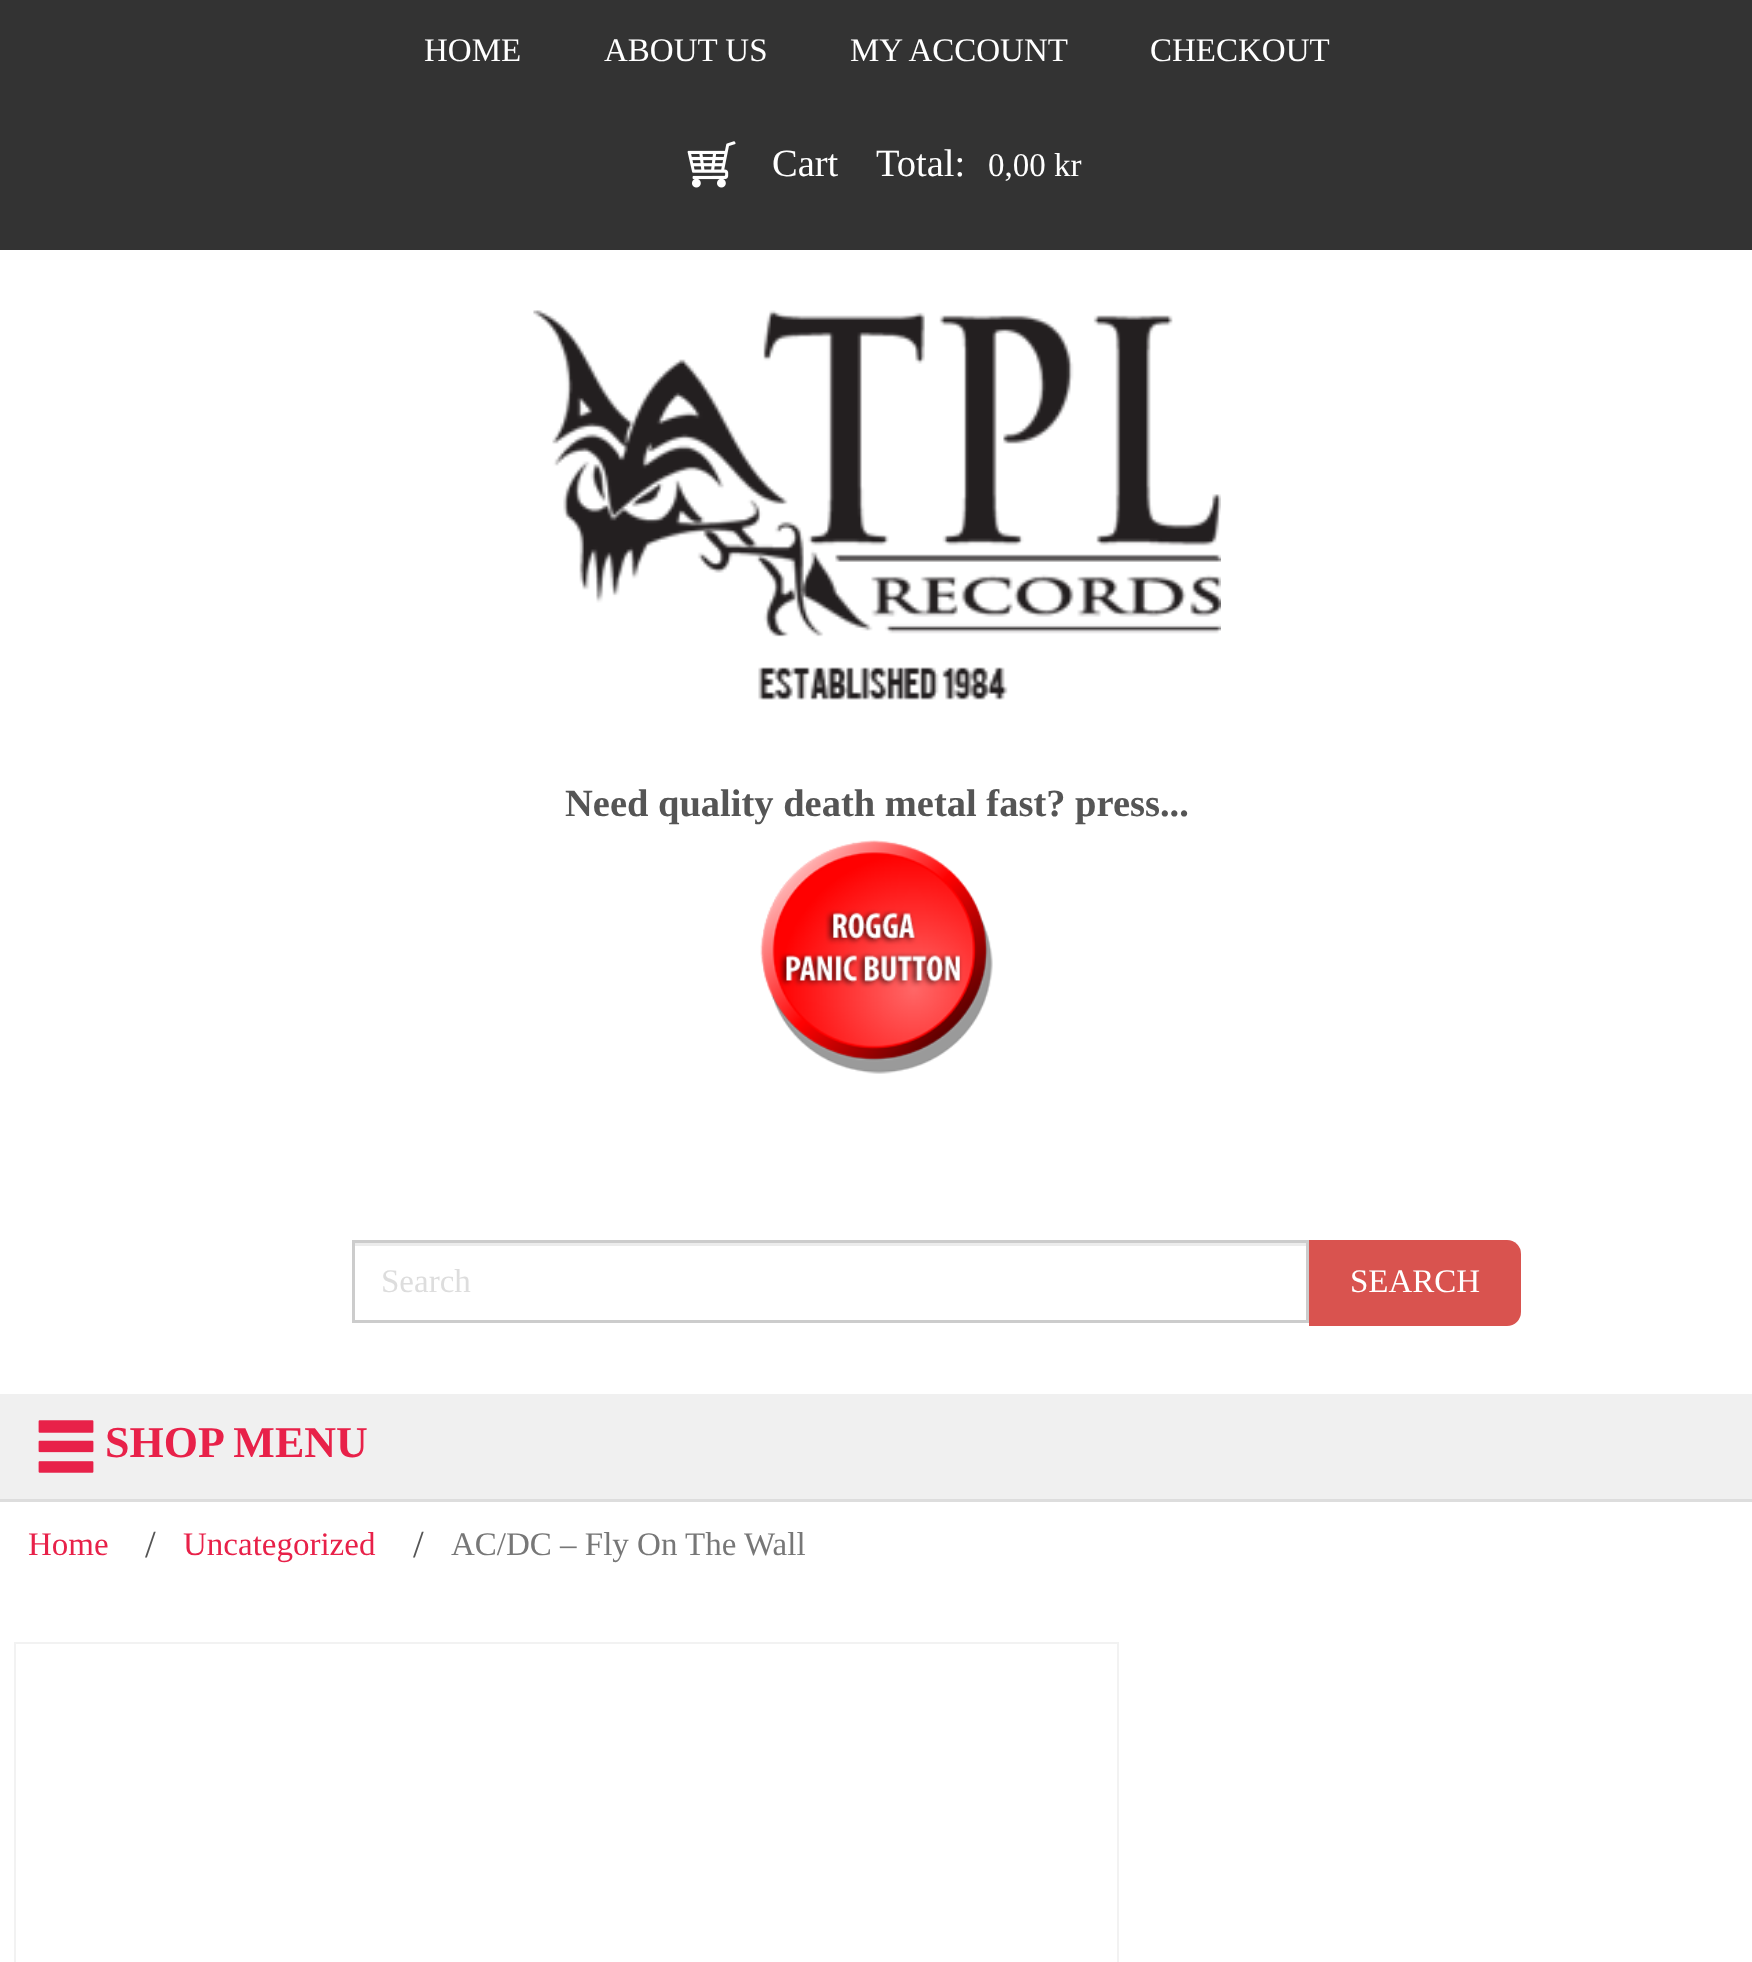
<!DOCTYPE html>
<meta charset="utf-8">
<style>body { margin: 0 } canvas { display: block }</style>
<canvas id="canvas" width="1752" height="1962"></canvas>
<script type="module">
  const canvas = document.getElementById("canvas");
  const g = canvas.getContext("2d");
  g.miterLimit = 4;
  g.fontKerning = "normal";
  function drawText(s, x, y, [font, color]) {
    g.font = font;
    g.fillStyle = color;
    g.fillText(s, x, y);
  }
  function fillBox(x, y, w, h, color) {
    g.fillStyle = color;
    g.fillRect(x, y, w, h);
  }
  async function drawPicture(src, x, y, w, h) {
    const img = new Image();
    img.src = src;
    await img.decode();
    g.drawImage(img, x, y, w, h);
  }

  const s1 = ["33px Liberation Serif", "#FFFFFF"];
  const s2 = ["38.5px Liberation Serif", "#FFFFFF"];
  const s3 = ["bold 38.5px Liberation Serif", "#555555"];
  const s4 = ["33px Liberation Serif", "#DDDDDD"];
  const s5 = ["bold 44px Liberation Serif", "#E82149"];
  const s6 = ["33px Liberation Serif", "#E82149"];
  const s7 = ["38.5px Liberation Serif", "#555555"];
  const s8 = ["33px Liberation Serif", "#777777"];

  fillBox(0, 0, 1752, 1962, "#FFFFFF");
  fillBox(0, 0, 1752, 250, "#333333");
  drawText("HOME", 424, 61, s1);
  drawText("ABOUT US", 604, 61, s1);
  drawText("MY ACCOUNT", 850, 61, s1);
  drawText("CHECKOUT", 1150, 61, s1);
  await drawPicture("pic1.png", 687, 141, 49, 47);
  drawText("Cart", 772, 176, s2);
  drawText("Total:", 876, 176, s2);
  drawText("0,00 kr", 988, 176, s1);
  await drawPicture("pic2.png", 533, 310, 688, 390);
  drawText("Need quality death metal fast? press...", 565, 816, s3);
  await drawPicture("pic3.png", 760, 840, 233, 234);
  fillBox(355, 1243, 951, 3, "#ECECEC");
  g.strokeStyle = "#CCCCCC";
  g.lineWidth = 3;
  g.strokeRect(353.5, 1241.5, 954, 80);
  drawText("Search", 381, 1292, s4);
  g.fillStyle = "#D9534F";
  g.beginPath();
  g.roundRect(1309, 1240, 212, 86, [0, 14, 14, 0]);
  g.fill();
  drawText("SEARCH", 1350, 1292, s1);
  fillBox(0, 1394, 1752, 105, "#F0F0F0");
  await drawPicture("pic4.png", 38, 1420, 56, 53);
  drawText("SHOP MENU", 105, 1457, s5);
  fillBox(0, 1499, 1752, 3, "#DDDDDD");
  drawText("Home", 28, 1555, s6);
  drawText("/", 145, 1557, s7);
  drawText("Uncategorized", 183, 1555, s6);
  drawText("/", 413, 1557, s7);
  drawText("AC/DC – Fly On The Wall", 451, 1555, s8);
  g.strokeStyle = "#F2F2F2";
  g.strokeRect(15.5, 1643.5, 1102, 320);
  fillBox(16, 1644, 1101, 318, "#FFFFFF");
</script>
